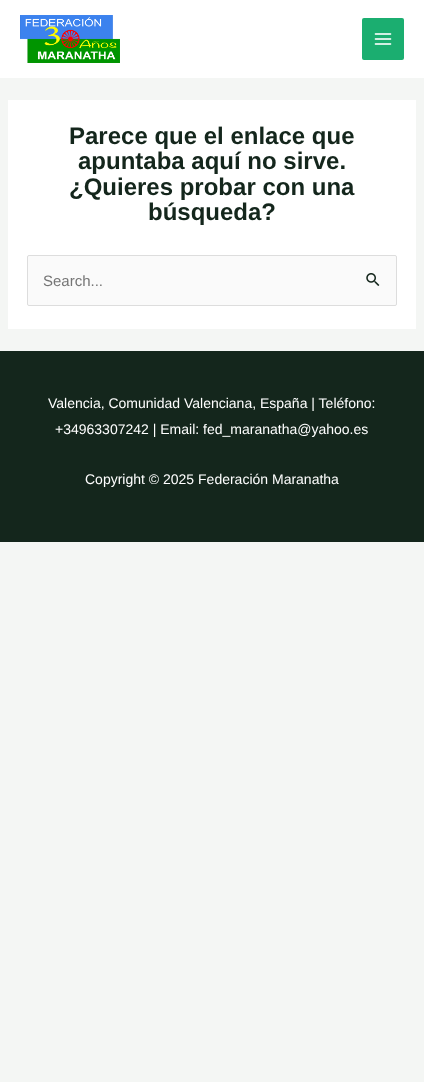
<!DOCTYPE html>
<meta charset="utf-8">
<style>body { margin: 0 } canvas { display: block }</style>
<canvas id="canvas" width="424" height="1082"></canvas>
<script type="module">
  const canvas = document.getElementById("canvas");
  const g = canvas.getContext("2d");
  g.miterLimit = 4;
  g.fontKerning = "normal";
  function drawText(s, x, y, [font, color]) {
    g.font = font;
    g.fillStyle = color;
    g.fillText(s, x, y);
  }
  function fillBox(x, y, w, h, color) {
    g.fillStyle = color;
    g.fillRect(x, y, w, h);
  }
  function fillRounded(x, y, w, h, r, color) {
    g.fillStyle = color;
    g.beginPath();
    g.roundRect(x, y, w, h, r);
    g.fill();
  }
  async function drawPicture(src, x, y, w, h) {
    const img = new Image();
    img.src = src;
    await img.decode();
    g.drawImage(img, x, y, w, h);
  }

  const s1 = ["bold 24px Liberation Sans", "#14261C"];
  const s2 = ["15px Liberation Sans", "#757575"];
  const s3 = ["14px Liberation Sans", "#FFFFFF"];

  fillBox(0, 0, 424, 1082, "#F4F6F4");
  fillBox(0, 0, 424, 78, "#FFFFFF");
  await drawPicture("pic1.png", 20, 15, 100, 48);
  fillRounded(362, 18, 42, 42, 2, "#1BAE70");
  await drawPicture("pic2.png", 374, 33, 18, 12);
  fillBox(8, 100, 408, 229, "#FFFFFF");
  drawText("Parece que el enlace que", 69, 144, s1);
  drawText("apuntaba aquí no sirve.", 78, 169, s1);
  drawText("¿Quieres probar con una", 69, 195, s1);
  drawText("búsqueda?", 148, 220, s1);
  g.fillStyle = "#FAFAFA";
  g.beginPath();
  g.roundRect(27.5, 255.5, 369, 50, 1.5);
  g.fill();
  g.strokeStyle = "#DDDDDD";
  g.stroke();
  drawText("Search...", 43, 286, s2);
  await drawPicture("pic3.png", 366, 273, 14, 13);
  fillBox(0, 351, 424, 191, "#14261C");
  drawText("Valencia, Comunidad Valenciana, España | Teléfono:", 48, 408, s3);
  drawText("+34963307242 | Email: fed_maranatha@yahoo.es", 55, 434, s3);
  drawText("Copyright © 2025 Federación Maranatha", 85, 484, s3);
</script>
